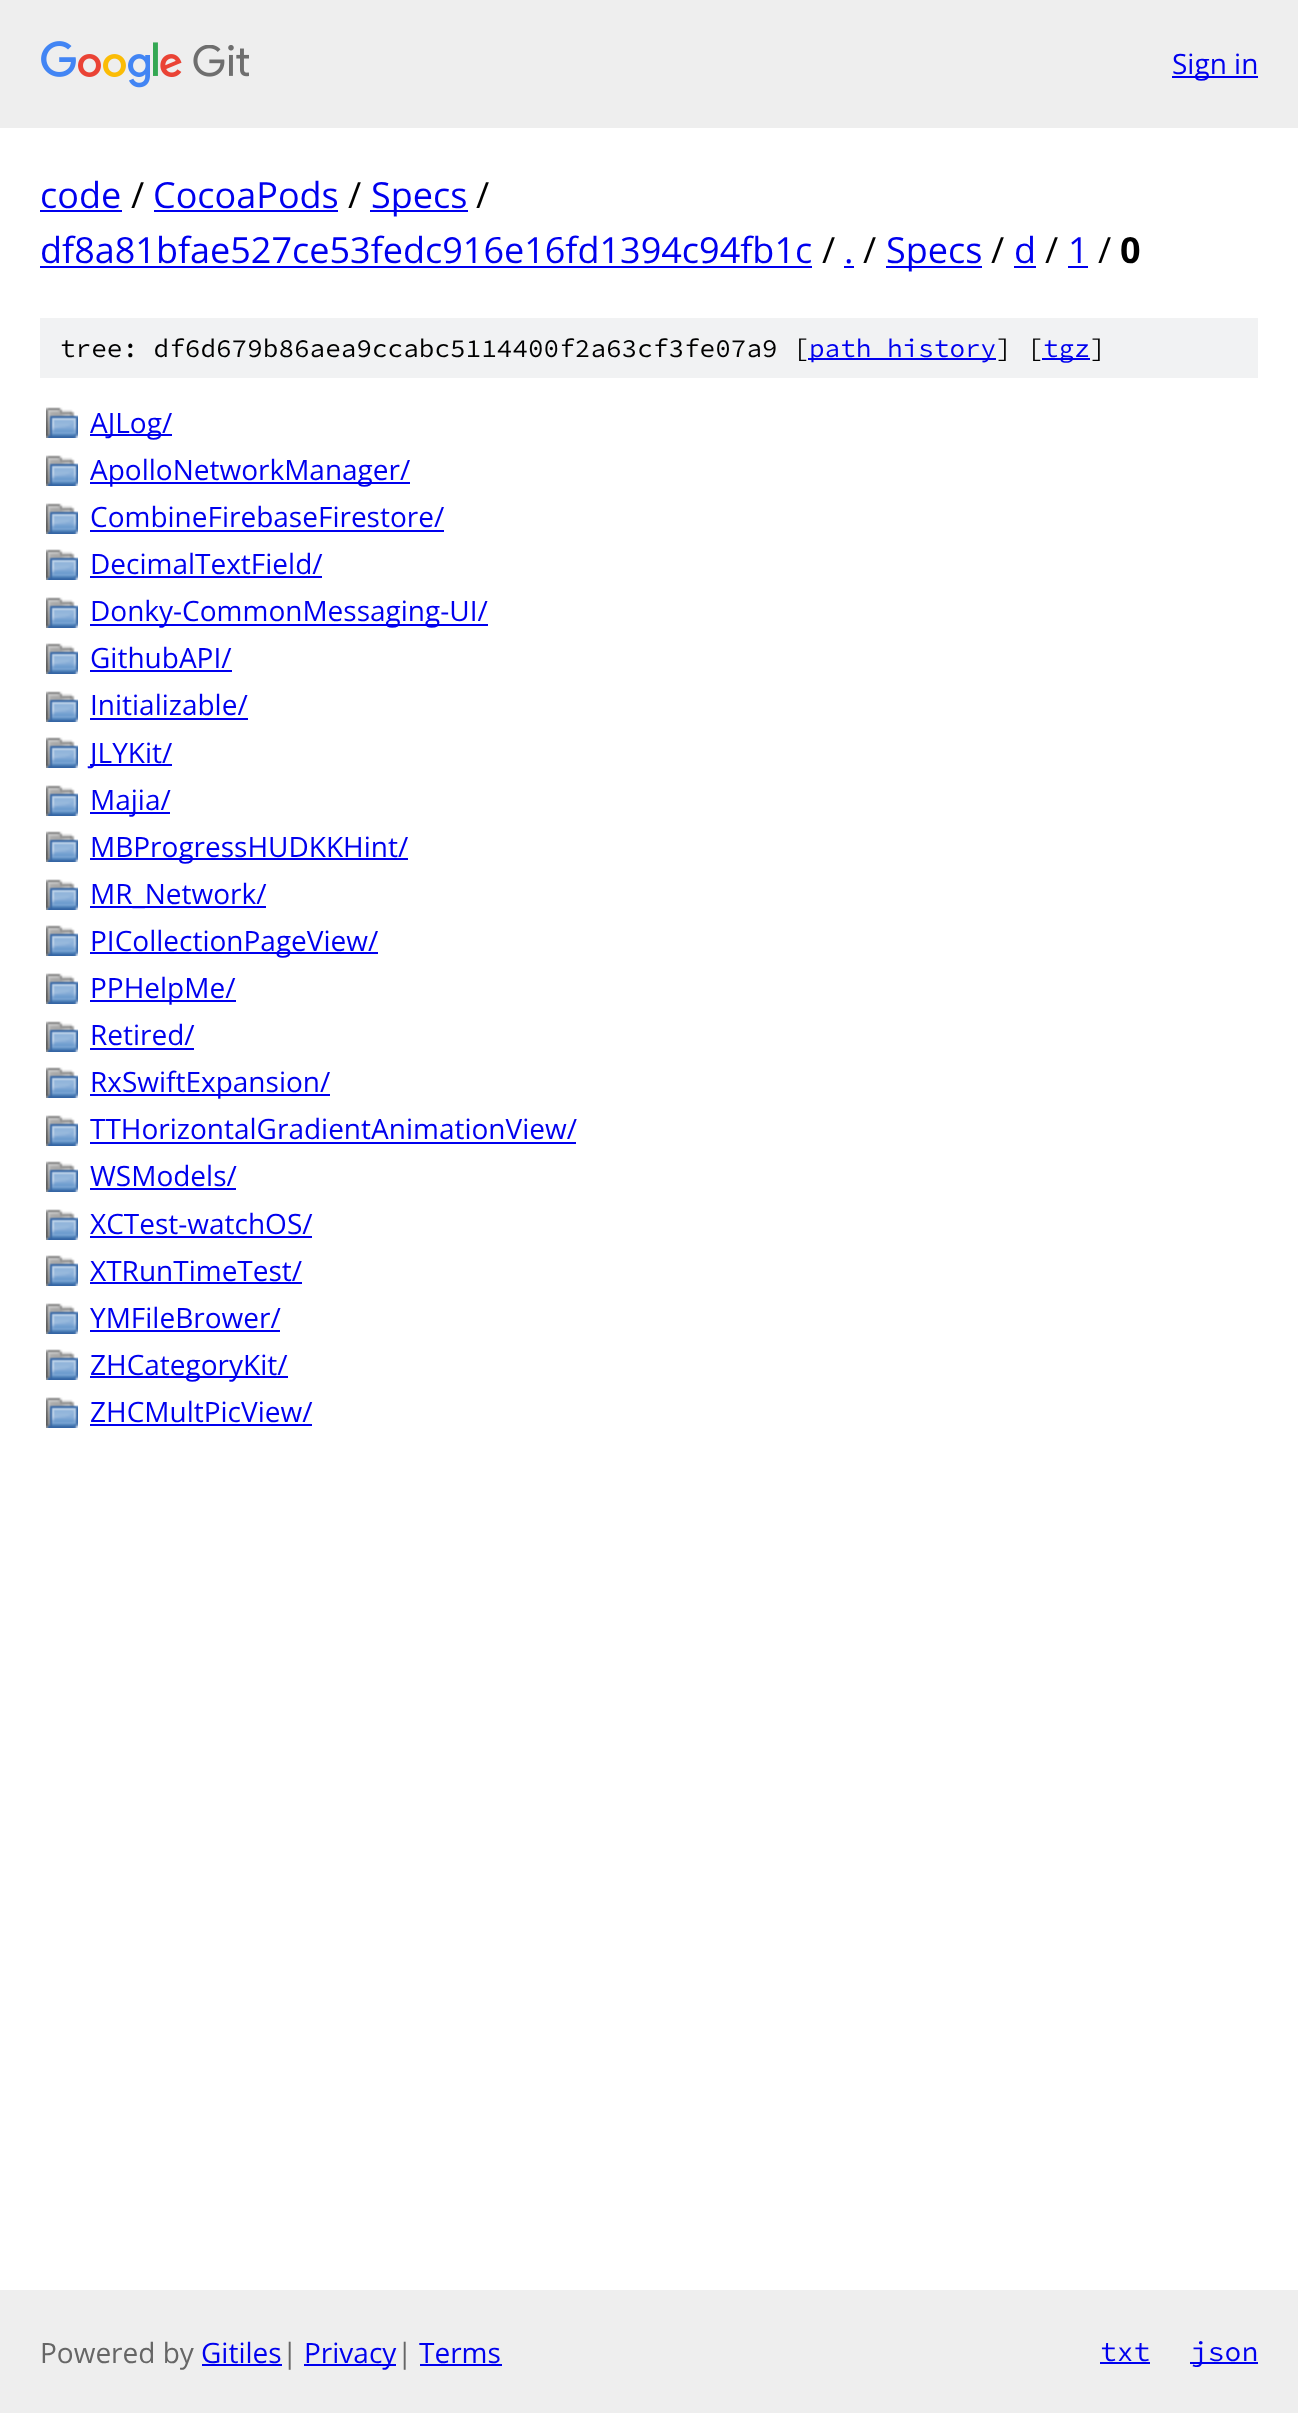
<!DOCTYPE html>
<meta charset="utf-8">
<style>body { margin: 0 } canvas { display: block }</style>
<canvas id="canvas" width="1298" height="2413"></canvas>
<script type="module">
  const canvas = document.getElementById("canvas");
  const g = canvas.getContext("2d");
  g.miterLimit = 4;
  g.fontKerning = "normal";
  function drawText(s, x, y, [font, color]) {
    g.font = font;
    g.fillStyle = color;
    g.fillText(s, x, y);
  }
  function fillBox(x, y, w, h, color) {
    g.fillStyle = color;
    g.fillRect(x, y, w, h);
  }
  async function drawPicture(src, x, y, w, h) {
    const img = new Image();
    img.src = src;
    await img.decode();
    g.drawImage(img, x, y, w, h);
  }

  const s1 = ["28px Open Sans", "#0000EE"];
  const s2 = ["36px Open Sans", "#0000EE"];
  const s3 = ["36px Open Sans", "#000000"];
  const s4 = ["bold 36px Open Sans", "#000000"];
  const s5 = ["200 26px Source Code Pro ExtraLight", "#000000"];
  const s6 = ["200 26px Source Code Pro ExtraLight", "#0000EE"];
  const s7 = ["28px Open Sans", "#666666"];
  const s8 = ["200 28px Source Code Pro ExtraLight", "#0000EE"];

  fillBox(0, 0, 1298, 2413, "#FFFFFF");
  fillBox(0, 0, 1298, 128, "#EEEEEE");
  await drawPicture("pic1.png", 41, 41, 208, 47);
  fillBox(1172, 76, 86, 2, "#0000EE");
  drawText("Sign in", 1172, 74, s1);
  drawText("code", 40, 208, s2);
  fillBox(40, 210, 82, 2, "#0000EE");
  drawText("/", 131, 208, s3);
  drawText("CocoaPods", 153, 208, s2);
  fillBox(154, 210, 184, 2, "#0000EE");
  drawText("/", 348, 208, s3);
  fillBox(370, 210, 98, 2, "#0000EE");
  drawText("Specs", 371, 208, s2);
  drawText("/", 476, 208, s3);
  drawText("df8a81bfae527ce53fedc916e16fd1394c94fb1c", 40, 263, s2);
  fillBox(40, 266, 772, 2, "#0000EE");
  drawText("/", 822, 263, s3);
  drawText(".", 844, 263, s2);
  fillBox(844, 266, 10, 2, "#0000EE");
  drawText("/", 863, 263, s3);
  fillBox(886, 266, 96, 2, "#0000EE");
  drawText("Specs", 886, 263, s2);
  drawText("/", 991, 263, s3);
  drawText("d", 1014, 263, s2);
  fillBox(1014, 266, 22, 2, "#0000EE");
  drawText("/", 1045, 263, s3);
  drawText("1", 1068, 263, s2);
  fillBox(1068, 266, 20, 2, "#0000EE");
  drawText("/", 1098, 263, s3);
  drawText("0", 1120, 263, s4);
  fillBox(40, 318, 1218, 60, "#F1F2F3");
  drawText("tree: df6d679b86aea9ccabc5114400f2a63cf3fe07a9 [", 60, 357, s5);
  fillBox(808, 358, 188, 2, "#0000EE");
  drawText("path history", 809, 357, s6);
  drawText("] [", 996, 357, s5);
  fillBox(1042, 358, 48, 2, "#0000EE");
  drawText("tgz", 1043, 357, s6);
  drawText("]", 1090, 357, s5);
  await drawPicture("pic2.png", 46, 407, 32, 31);
  fillBox(90, 434, 82, 2, "#0000EE");
  drawText("AJLog/", 90, 433, s1);
  await drawPicture("pic2.png", 46, 455, 32, 31);
  fillBox(90, 482, 320, 2, "#0000EE");
  drawText("ApolloNetworkManager/", 90, 480, s1);
  await drawPicture("pic2.png", 46, 503, 32, 31);
  drawText("CombineFirebaseFirestore/", 90, 527, s1);
  fillBox(90, 530, 354, 2, "#0000EE");
  await drawPicture("pic2.png", 46, 549, 32, 31);
  drawText("DecimalTextField/", 90, 574, s1);
  fillBox(90, 576, 232, 2, "#0000EE");
  await drawPicture("pic2.png", 46, 597, 32, 31);
  fillBox(90, 624, 398, 2, "#0000EE");
  drawText("Donky-CommonMessaging-UI/", 90, 621, s1);
  await drawPicture("pic2.png", 46, 643, 32, 31);
  drawText("GithubAPI/", 90, 668, s1);
  fillBox(90, 670, 142, 2, "#0000EE");
  await drawPicture("pic2.png", 46, 691, 32, 31);
  drawText("Initializable/", 90, 715, s1);
  fillBox(90, 718, 158, 2, "#0000EE");
  await drawPicture("pic2.png", 46, 737, 32, 31);
  fillBox(90, 764, 82, 2, "#0000EE");
  drawText("JLYKit/", 90, 763, s1);
  await drawPicture("pic2.png", 46, 785, 32, 31);
  fillBox(90, 812, 80, 2, "#0000EE");
  drawText("Majia/", 90, 810, s1);
  await drawPicture("pic2.png", 46, 831, 32, 31);
  fillBox(90, 858, 318, 2, "#0000EE");
  drawText("MBProgressHUDKKHint/", 90, 857, s1);
  await drawPicture("pic2.png", 46, 879, 32, 31);
  fillBox(90, 906, 176, 2, "#0000EE");
  drawText("MR_Network/", 90, 904, s1);
  await drawPicture("pic2.png", 46, 925, 32, 31);
  fillBox(90, 952, 288, 2, "#0000EE");
  drawText("PICollectionPageView/", 90, 951, s1);
  await drawPicture("pic2.png", 46, 973, 32, 31);
  fillBox(90, 1000, 146, 2, "#0000EE");
  drawText("PPHelpMe/", 90, 998, s1);
  await drawPicture("pic2.png", 46, 1021, 32, 31);
  drawText("Retired/", 90, 1045, s1);
  fillBox(90, 1048, 104, 2, "#0000EE");
  await drawPicture("pic2.png", 46, 1067, 32, 31);
  fillBox(90, 1094, 240, 2, "#0000EE");
  drawText("RxSwiftExpansion/", 90, 1092, s1);
  await drawPicture("pic2.png", 46, 1115, 32, 31);
  drawText("TTHorizontalGradientAnimationView/", 90, 1139, s1);
  fillBox(90, 1142, 486, 2, "#0000EE");
  await drawPicture("pic2.png", 46, 1161, 32, 31);
  drawText("WSModels/", 90, 1186, s1);
  fillBox(90, 1188, 146, 2, "#0000EE");
  await drawPicture("pic2.png", 46, 1209, 32, 31);
  drawText("XCTest-watchOS/", 90, 1234, s1);
  fillBox(90, 1236, 222, 2, "#0000EE");
  await drawPicture("pic2.png", 46, 1255, 32, 31);
  drawText("XTRunTimeTest/", 90, 1281, s1);
  fillBox(90, 1282, 212, 2, "#0000EE");
  await drawPicture("pic2.png", 46, 1303, 32, 31);
  drawText("YMFileBrower/", 90, 1328, s1);
  fillBox(90, 1330, 190, 2, "#0000EE");
  await drawPicture("pic2.png", 46, 1349, 32, 31);
  fillBox(90, 1376, 198, 2, "#0000EE");
  drawText("ZHCategoryKit/", 90, 1375, s1);
  await drawPicture("pic2.png", 46, 1397, 32, 31);
  drawText("ZHCMultPicView/", 90, 1422, s1);
  fillBox(90, 1424, 222, 2, "#0000EE");
  fillBox(0, 2290, 1298, 123, "#EEEEEE");
  drawText("Powered by", 40, 2363, s7);
  drawText("Gitiles", 201, 2363, s1);
  fillBox(202, 2364, 80, 2, "#0000EE");
  drawText("|", 282, 2363, s7);
  fillBox(304, 2364, 92, 2, "#0000EE");
  drawText("Privacy", 304, 2363, s1);
  drawText("|", 397, 2363, s7);
  drawText("Terms", 419, 2363, s1);
  fillBox(420, 2364, 82, 2, "#0000EE");
  drawText("txt", 1100, 2361, s8);
  fillBox(1100, 2362, 50, 2, "#0000EE");
  fillBox(1190, 2362, 68, 2, "#0000EE");
  drawText("json", 1191, 2361, s8);
</script>
